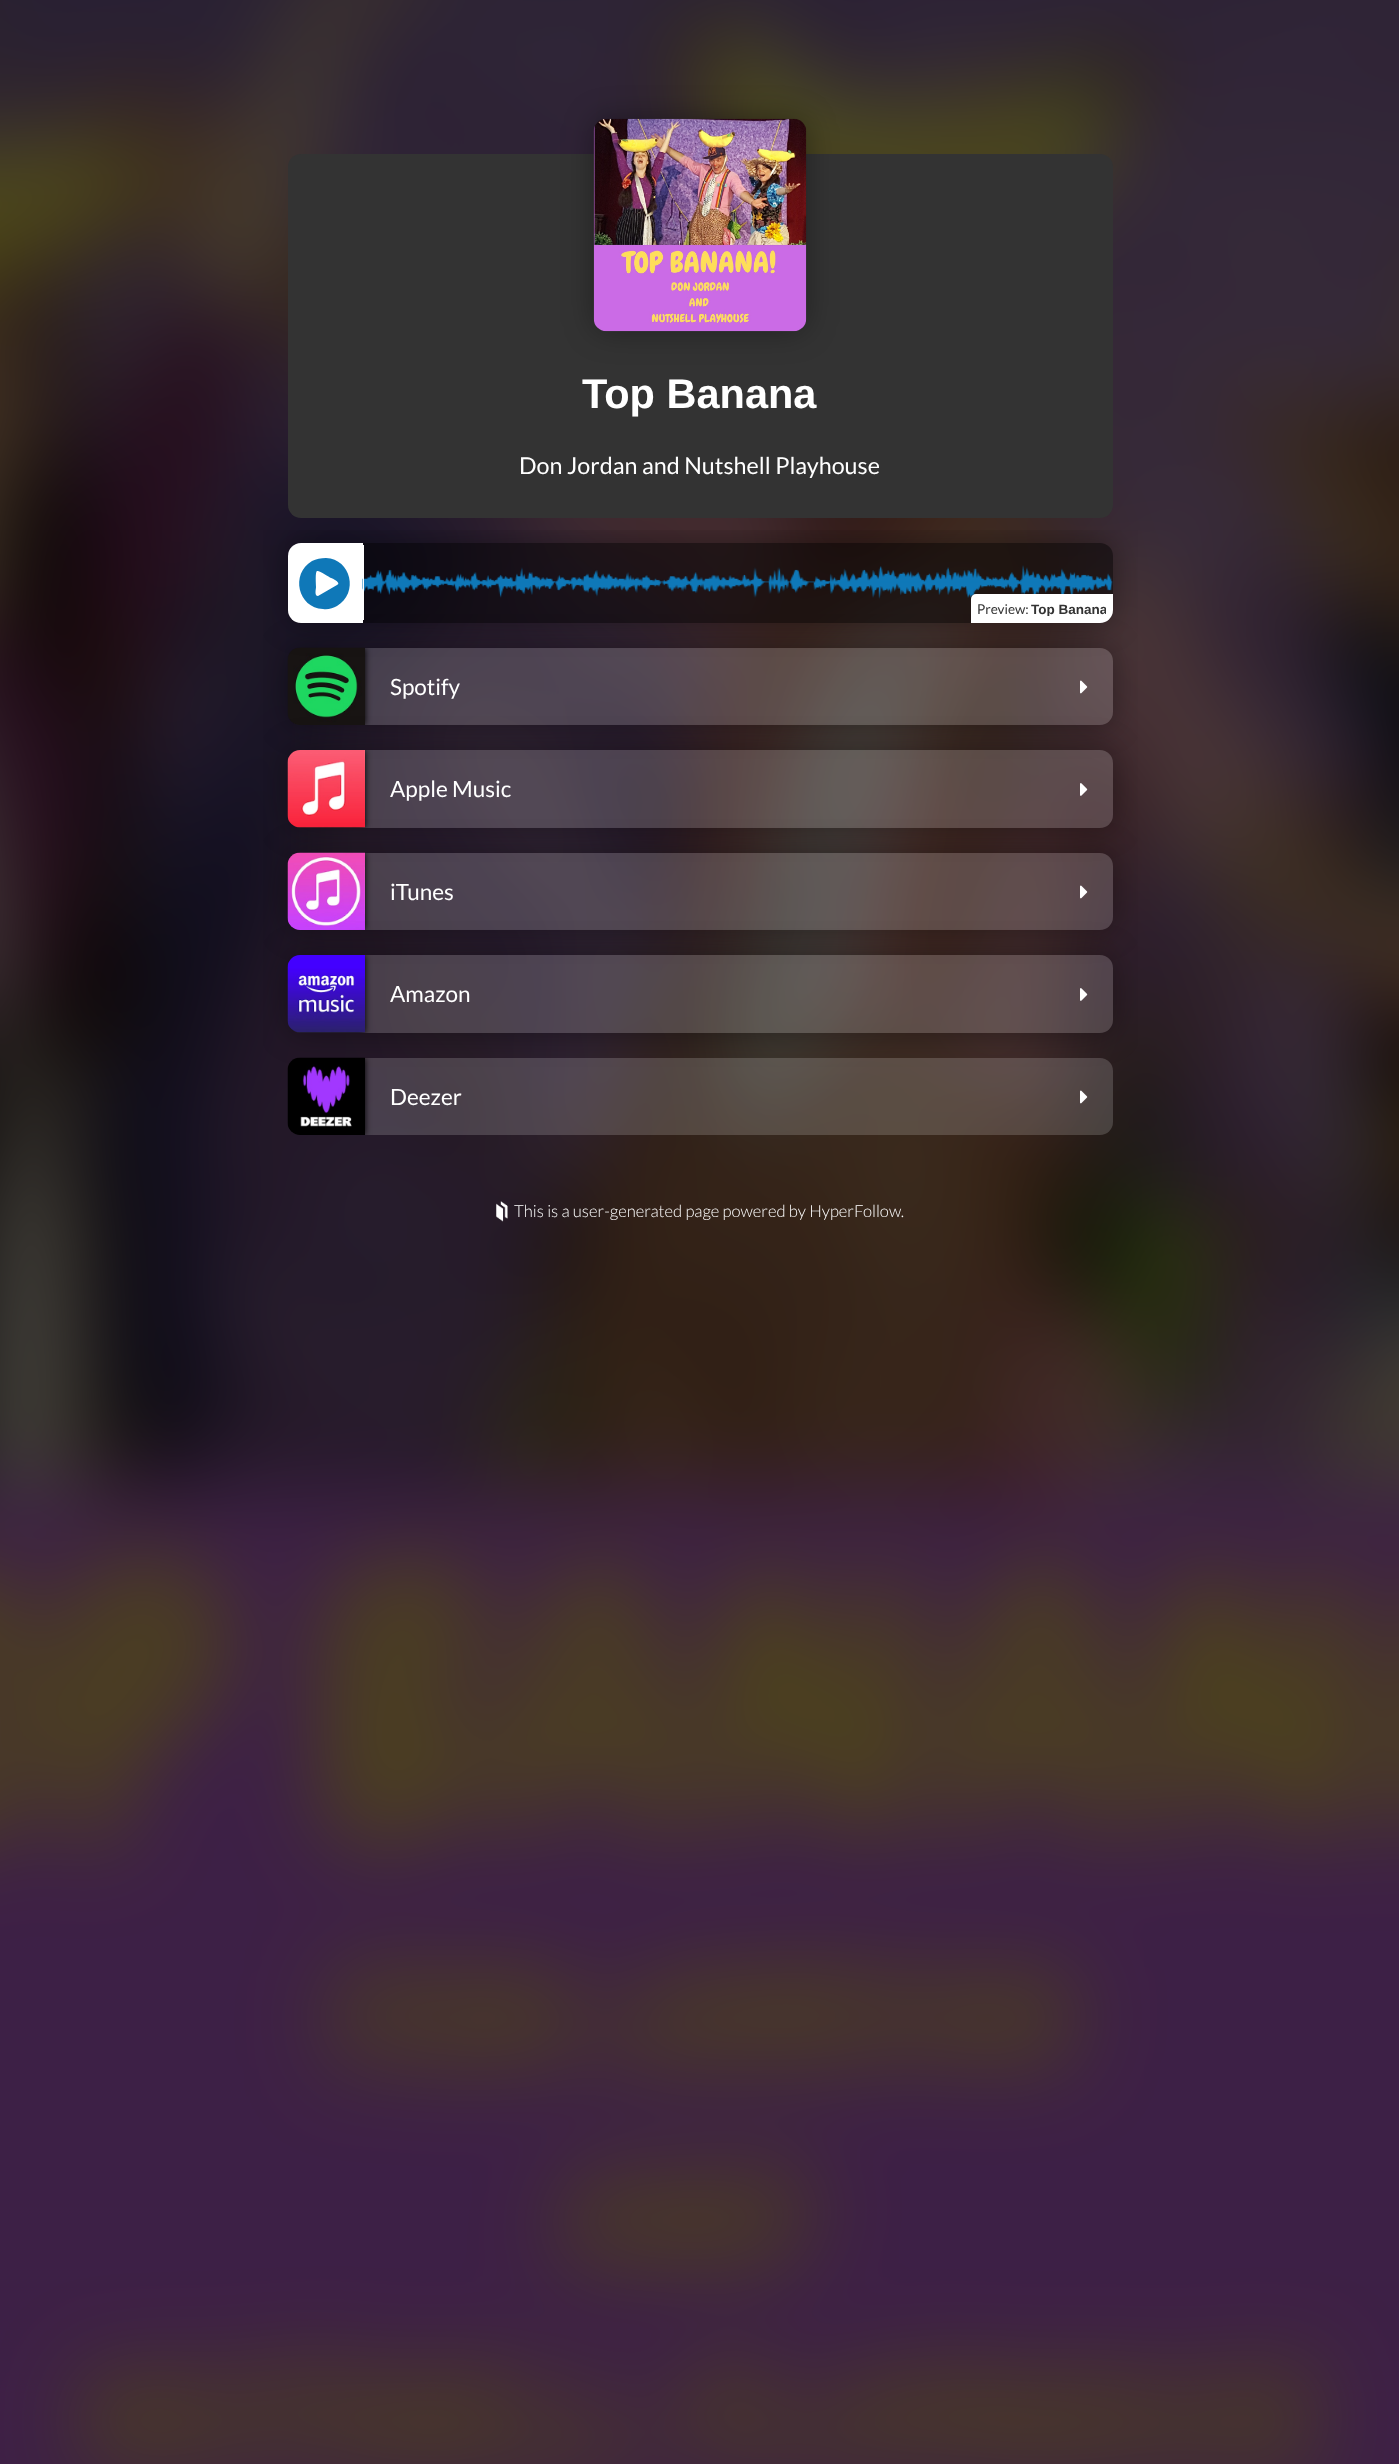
<!DOCTYPE html>
<meta charset="utf-8">
<style>body { margin: 0 } canvas { display: block }</style>
<canvas id="canvas" width="1399" height="2464"></canvas>
<script type="module">
  const canvas = document.getElementById("canvas");
  const g = canvas.getContext("2d");
  g.miterLimit = 4;
  g.fontKerning = "normal";
  function drawText(s, x, y, [font, color]) {
    g.font = font;
    g.fillStyle = color;
    g.fillText(s, x, y);
  }
  function fillBox(x, y, w, h, color) {
    g.fillStyle = color;
    g.fillRect(x, y, w, h);
  }
  function fillRounded(x, y, w, h, r, color) {
    g.fillStyle = color;
    g.beginPath();
    g.roundRect(x, y, w, h, r);
    g.fill();
  }
  async function drawPicture(src, x, y, w, h) {
    const img = new Image();
    img.src = src;
    await img.decode();
    g.drawImage(img, x, y, w, h);
  }

  const s1 = ["bold 41.5px Liberation Sans", "#FFFFFF"];
  const s2 = ["23.3px Lato", "#FFFFFF"];
  const s3 = ["13.5px Lato", "#333333"];
  const s4 = ["bold 13.5px Liberation Sans", "#333333"];
  const s5 = ["22.5px Lato", "#FFFFFF"];
  const s6 = ["300 16.7px Lato", "#FFFFFF"];

  fillBox(0, 0, 1399, 2464, "#000000");
  await drawPicture("pic1.png", 0, 0, 1399, 2464);
  fillRounded(288, 154, 825, 364, 13, "#333333");
  g.fillStyle = "rgba(0, 0, 0, 0.35)";
  g.filter = "blur(15.5px)";
  g.beginPath();
  g.roundRect(594, 119, 212, 212, 13);
  g.fill();
  g.filter = "none";
  await drawPicture("pic2.png", 593, 118, 214, 214);
  drawText("Top Banana", 582, 408, s1);
  drawText("Don Jordan and Nutshell Playhouse", 519, 474, s2);
  g.save();
  g.beginPath();
  g.rect(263, 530, 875, 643);
  g.clip();
  g.beginPath();
  g.moveTo(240, 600);
  g.lineTo(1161, 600);
  g.lineTo(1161, 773);
  g.lineTo(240, 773);
  g.closePath();
  g.moveTo(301, 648);
  g.lineTo(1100, 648);
  g.bezierCurveTo(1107, 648, 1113, 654, 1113, 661);
  g.lineTo(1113, 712);
  g.bezierCurveTo(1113, 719, 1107, 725, 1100, 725);
  g.lineTo(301, 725);
  g.bezierCurveTo(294, 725, 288, 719, 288, 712);
  g.lineTo(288, 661);
  g.bezierCurveTo(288, 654, 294, 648, 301, 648);
  g.closePath();
  g.clip("evenodd");
  g.fillStyle = "rgba(0, 0, 0, 0.35)";
  g.filter = "blur(15.5px)";
  g.beginPath();
  g.roundRect(288, 648, 825, 77, 13);
  g.fill();
  g.filter = "none";
  g.restore();
  fillRounded(288, 648, 825, 77, 13, "rgba(255, 255, 255, 0.17)");
  g.save();
  g.beginPath();
  g.roundRect(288, 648, 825, 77, 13);
  g.clip();
  g.fillStyle = "#000000";
  g.filter = "blur(3px)";
  g.beginPath();
  g.rect(288, 648, 77, 77);
  g.fill();
  g.filter = "none";
  g.restore();
  await drawPicture("pic4.png", 287, 647, 78, 78);
  g.save();
  g.beginPath();
  g.rect(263, 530, 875, 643);
  g.clip();
  g.beginPath();
  g.moveTo(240, 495);
  g.lineTo(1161, 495);
  g.lineTo(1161, 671);
  g.lineTo(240, 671);
  g.closePath();
  g.moveTo(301, 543);
  g.lineTo(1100, 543);
  g.bezierCurveTo(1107, 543, 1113, 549, 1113, 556);
  g.lineTo(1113, 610);
  g.bezierCurveTo(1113, 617, 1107, 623, 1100, 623);
  g.lineTo(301, 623);
  g.bezierCurveTo(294, 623, 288, 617, 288, 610);
  g.lineTo(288, 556);
  g.bezierCurveTo(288, 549, 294, 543, 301, 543);
  g.closePath();
  g.clip("evenodd");
  g.fillStyle = "rgba(0, 0, 0, 0.35)";
  g.filter = "blur(15.5px)";
  g.beginPath();
  g.roundRect(288, 543, 825, 80, 13);
  g.fill();
  g.filter = "none";
  g.restore();
  g.fillStyle = "#FFFFFF";
  g.beginPath();
  g.roundRect(288, 543, 75, 80, [13, 0, 0, 13]);
  g.fill();
  g.fillStyle = "#0F78B8";
  g.beginPath();
  g.moveTo(312, 561);
  g.bezierCurveTo(316, 559, 321, 558, 326, 558);
  g.bezierCurveTo(351, 559, 359, 593, 337, 606);
  g.bezierCurveTo(333, 608, 328, 610, 323, 609);
  g.bezierCurveTo(298, 608, 290, 574, 312, 561);
  g.closePath();
  g.moveTo(337, 585);
  g.bezierCurveTo(342, 583, 332, 578, 331, 578);
  g.bezierCurveTo(329, 577, 319, 570, 317, 571);
  g.bezierCurveTo(315, 572, 316, 584, 316, 587);
  g.bezierCurveTo(316, 589, 314, 596, 318, 596);
  g.closePath();
  g.fill();
  g.fillStyle = "rgba(0, 0, 0, 0.5)";
  g.beginPath();
  g.roundRect(363, 543, 750, 80, [0, 13, 13, 0]);
  g.fill();
  await drawPicture("pic3.png", 362, 565, 751, 34);
  fillBox(363, 545, 1, 75, "#FFFFFF");
  g.beginPath();
  g.roundRect(971, 594, 142, 29, [5, 0, 13, 0]);
  g.fill();
  drawText("Preview:", 977, 614, s3);
  g.save();
  g.beginPath();
  g.rect(978, 600, 128, 16);
  g.clip();
  drawText("Top Banana", 1031, 614, s4);
  g.restore();
  drawText("Spotify", 390, 695, s5);
  await drawPicture("pic5.png", 1080, 680, 8, 14);
  g.save();
  g.beginPath();
  g.rect(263, 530, 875, 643);
  g.clip();
  g.beginPath();
  g.moveTo(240, 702);
  g.lineTo(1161, 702);
  g.lineTo(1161, 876);
  g.lineTo(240, 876);
  g.closePath();
  g.moveTo(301, 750);
  g.lineTo(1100, 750);
  g.bezierCurveTo(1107, 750, 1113, 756, 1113, 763);
  g.lineTo(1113, 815);
  g.bezierCurveTo(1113, 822, 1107, 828, 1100, 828);
  g.lineTo(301, 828);
  g.bezierCurveTo(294, 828, 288, 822, 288, 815);
  g.lineTo(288, 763);
  g.bezierCurveTo(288, 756, 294, 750, 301, 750);
  g.closePath();
  g.clip("evenodd");
  g.fillStyle = "rgba(0, 0, 0, 0.35)";
  g.filter = "blur(15.5px)";
  g.beginPath();
  g.roundRect(288, 750, 825, 78, 13);
  g.fill();
  g.filter = "none";
  g.restore();
  fillRounded(288, 750, 825, 78, 13, "rgba(255, 255, 255, 0.17)");
  g.save();
  g.beginPath();
  g.roundRect(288, 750, 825, 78, 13);
  g.clip();
  g.fillStyle = "#000000";
  g.filter = "blur(3px)";
  g.beginPath();
  g.rect(288, 750, 77, 78);
  g.fill();
  g.filter = "none";
  g.restore();
  await drawPicture("pic6.png", 287, 750, 78, 78);
  drawText("Apple Music", 390, 797, s5);
  await drawPicture("pic7.png", 1080, 783, 8, 13);
  g.save();
  g.beginPath();
  g.rect(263, 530, 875, 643);
  g.clip();
  g.beginPath();
  g.moveTo(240, 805);
  g.lineTo(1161, 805);
  g.lineTo(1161, 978);
  g.lineTo(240, 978);
  g.closePath();
  g.moveTo(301, 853);
  g.lineTo(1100, 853);
  g.bezierCurveTo(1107, 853, 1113, 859, 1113, 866);
  g.lineTo(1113, 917);
  g.bezierCurveTo(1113, 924, 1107, 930, 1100, 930);
  g.lineTo(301, 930);
  g.bezierCurveTo(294, 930, 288, 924, 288, 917);
  g.lineTo(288, 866);
  g.bezierCurveTo(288, 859, 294, 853, 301, 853);
  g.closePath();
  g.clip("evenodd");
  g.fillStyle = "rgba(0, 0, 0, 0.35)";
  g.filter = "blur(15.5px)";
  g.beginPath();
  g.roundRect(288, 853, 825, 77, 13);
  g.fill();
  g.filter = "none";
  g.restore();
  fillRounded(288, 853, 825, 77, 13, "rgba(255, 255, 255, 0.17)");
  g.save();
  g.beginPath();
  g.roundRect(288, 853, 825, 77, 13);
  g.clip();
  g.fillStyle = "#000000";
  g.filter = "blur(3px)";
  g.beginPath();
  g.rect(288, 853, 77, 77);
  g.fill();
  g.filter = "none";
  g.restore();
  await drawPicture("pic8.png", 287, 852, 78, 78);
  drawText("iTunes", 390, 900, s5);
  await drawPicture("pic9.png", 1080, 885, 8, 14);
  g.save();
  g.beginPath();
  g.rect(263, 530, 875, 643);
  g.clip();
  g.beginPath();
  g.moveTo(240, 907);
  g.lineTo(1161, 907);
  g.lineTo(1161, 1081);
  g.lineTo(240, 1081);
  g.closePath();
  g.moveTo(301, 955);
  g.lineTo(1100, 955);
  g.bezierCurveTo(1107, 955, 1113, 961, 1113, 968);
  g.lineTo(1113, 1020);
  g.bezierCurveTo(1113, 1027, 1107, 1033, 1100, 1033);
  g.lineTo(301, 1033);
  g.bezierCurveTo(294, 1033, 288, 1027, 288, 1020);
  g.lineTo(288, 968);
  g.bezierCurveTo(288, 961, 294, 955, 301, 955);
  g.closePath();
  g.clip("evenodd");
  g.fillStyle = "rgba(0, 0, 0, 0.35)";
  g.filter = "blur(15.5px)";
  g.beginPath();
  g.roundRect(288, 955, 825, 78, 13);
  g.fill();
  g.filter = "none";
  g.restore();
  fillRounded(288, 955, 825, 78, 13, "rgba(255, 255, 255, 0.17)");
  g.save();
  g.beginPath();
  g.roundRect(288, 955, 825, 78, 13);
  g.clip();
  g.fillStyle = "#000000";
  g.filter = "blur(3px)";
  g.beginPath();
  g.rect(288, 955, 77, 78);
  g.fill();
  g.filter = "none";
  g.restore();
  await drawPicture("pic10.png", 287, 955, 78, 78);
  drawText("Amazon", 390, 1002, s5);
  await drawPicture("pic11.png", 1080, 988, 8, 13);
  fillRounded(288, 1058, 825, 77, 13, "rgba(255, 255, 255, 0.17)");
  g.save();
  g.beginPath();
  g.roundRect(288, 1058, 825, 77, 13);
  g.clip();
  g.fillStyle = "#000000";
  g.filter = "blur(3px)";
  g.beginPath();
  g.rect(288, 1058, 77, 77);
  g.fill();
  g.filter = "none";
  g.restore();
  await drawPicture("pic12.png", 287, 1057, 78, 78);
  drawText("Deezer", 390, 1105, s5);
  await drawPicture("pic13.png", 1080, 1090, 8, 14);
  await drawPicture("pic14.png", 496, 1201, 12, 21);
  drawText("This is a user-generated page powered by HyperFollow.", 514, 1217, s6);
</script>
